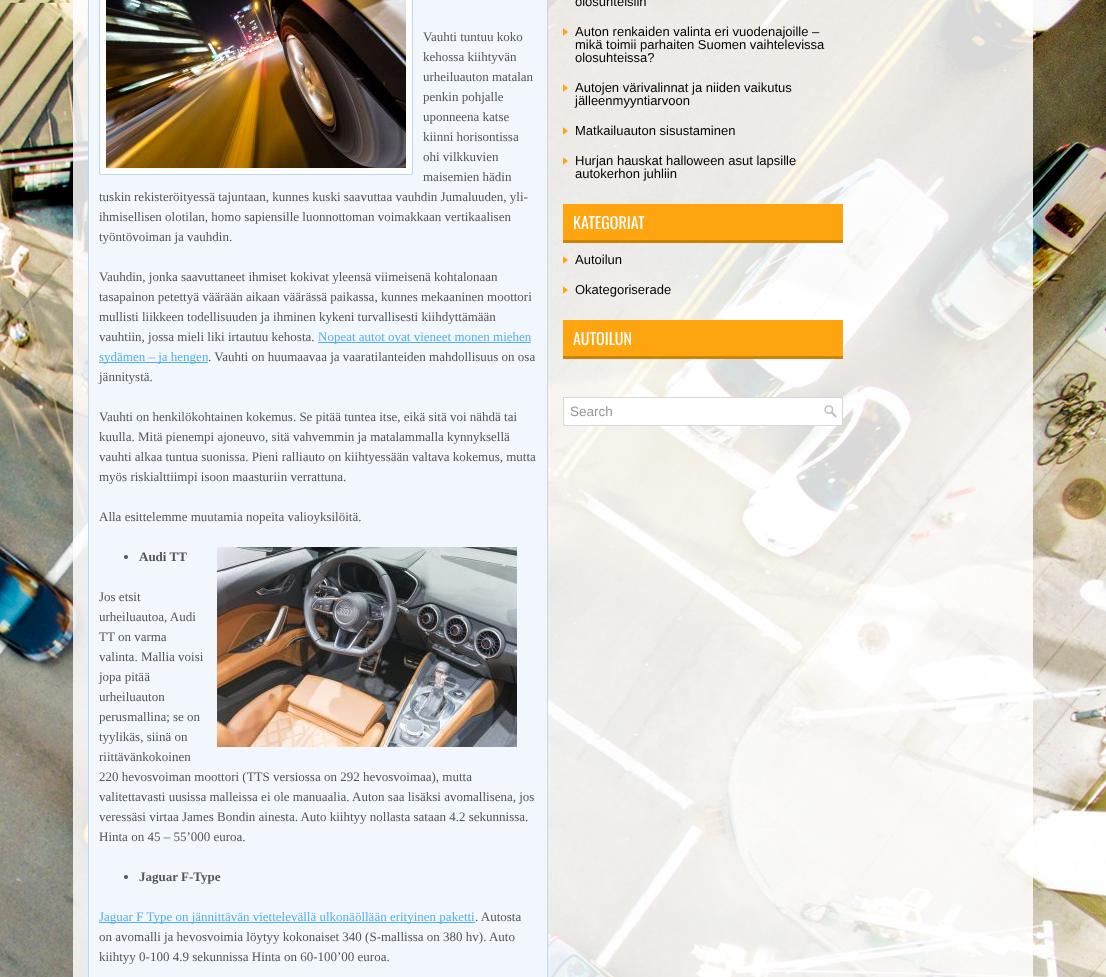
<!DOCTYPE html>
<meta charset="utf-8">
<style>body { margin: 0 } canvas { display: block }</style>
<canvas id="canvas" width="1106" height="977"></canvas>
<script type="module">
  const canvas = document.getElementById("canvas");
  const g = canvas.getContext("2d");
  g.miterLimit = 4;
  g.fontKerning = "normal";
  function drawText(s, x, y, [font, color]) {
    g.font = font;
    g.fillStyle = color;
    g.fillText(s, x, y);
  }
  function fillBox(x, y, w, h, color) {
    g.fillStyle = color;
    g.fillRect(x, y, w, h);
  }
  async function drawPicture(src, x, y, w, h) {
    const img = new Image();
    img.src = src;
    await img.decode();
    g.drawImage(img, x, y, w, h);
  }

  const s1 = ["13px Liberation Serif", "#555555"];
  const s2 = ["13px Liberation Serif", "#54AFF2"];
  const s3 = ["bold 13px Liberation Serif", "#555555"];
  const s4 = ["13px Liberation Sans", "#010101"];
  const s5 = ["16px Oswald", "#FFFFFF"];
  const s6 = ["13.5px Liberation Sans", "#979797"];

  fillBox(0, 0, 1106, 977, "#FFFFFF");
  await drawPicture("pic1.png", 0, 0, 1106, 977);
  fillBox(73, 0, 960, 977, "rgba(255, 255, 255, 0.85)");
  fillBox(89, 0, 458, 977, "#F1F7FC");
  fillBox(547, 0, 1, 977, "#BED9EC");
  fillBox(88, 0, 1, 977, "#BED9EC");
  g.fillStyle = "#FFFFFF";
  g.beginPath();
  g.rect(99.5, -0.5, 313, 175);
  g.fill();
  g.strokeStyle = "#BED9EC";
  g.stroke();
  await drawPicture("pic2.png", 106, 0, 300, 168);
  drawText("Vauhti tuntuu koko", 423, 41, s1);
  drawText("kehossa kiihtyvän", 423, 61, s1);
  drawText("urheiluauton matalan", 423, 81, s1);
  drawText("penkin pohjalle", 423, 101, s1);
  drawText("uponneena katse", 423, 121, s1);
  drawText("kiinni horisontissa", 423, 141, s1);
  drawText("ohi vilkkuvien", 423, 161, s1);
  drawText("maisemien hädin", 423, 181, s1);
  drawText("tuskin rekisteröityessä tajuntaan, kunnes kuski saavuttaa vauhdin Jumaluuden, yli-", 99, 201, s1);
  drawText("ihmisellisen olotilan, homo sapiensille luonnottoman voimakkaan vertikaalisen", 99, 221, s1);
  drawText("työntövoiman ja vauhdin.", 99, 241, s1);
  drawText("Vauhdin, jonka saavuttaneet ihmiset kokivat yleensä viimeisenä kohtalonaan", 99, 281, s1);
  drawText("tasapainon petettyä väärään aikaan väärässä paikassa, kunnes mekaaninen moottori", 99, 301, s1);
  drawText("mullisti liikkeen todellisuuden ja ihminen kykeni turvallisesti kiihdyttämään", 99, 321, s1);
  drawText("vauhtiin, jossa mieli liki irtautuu kehosta.", 99, 341, s1);
  fillBox(318, 342, 213, 1, "#54AFF2");
  drawText("Nopeat autot ovat vieneet monen miehen", 318, 341, s2);
  fillBox(99, 362, 109, 1, "#54AFF2");
  drawText("sydämen – ja hengen", 99, 361, s2);
  drawText(". Vauhti on huumaavaa ja vaaratilanteiden mahdollisuus on osa", 208, 361, s1);
  drawText("jännitystä.", 99, 381, s1);
  drawText("Vauhti on henkilökohtainen kokemus. Se pitää tuntea itse, eikä sitä voi nähdä tai", 99, 421, s1);
  drawText("kuulla. Mitä pienempi ajoneuvo, sitä vahvemmin ja matalammalla kynnyksellä", 99, 441, s1);
  drawText("vauhti alkaa tuntua suonissa. Pieni ralliauto on kiihtyessään valtava kokemus, mutta", 99, 461, s1);
  drawText("myös riskialttiimpi isoon maasturiin verrattuna.", 99, 481, s1);
  drawText("Alla esittelemme muutamia nopeita valioyksilöitä.", 99, 521, s1);
  g.beginPath();
  g.arc(126, 557, 2, 0, Math.PI * 2);
  g.fill();
  drawText("Audi TT", 139, 561, s3);
  await drawPicture("pic3.png", 217, 547, 300, 200);
  drawText("Jos etsit", 99, 601, s1);
  drawText("urheiluautoa, Audi", 99, 621, s1);
  drawText("TT on varma", 99, 641, s1);
  drawText("valinta. Mallia voisi", 99, 661, s1);
  drawText("jopa pitää", 99, 681, s1);
  drawText("urheiluauton", 99, 701, s1);
  drawText("perusmallina; se on", 99, 721, s1);
  drawText("tyylikäs, siinä on", 99, 741, s1);
  drawText("riittävänkokoinen", 99, 761, s1);
  drawText("220 hevosvoiman moottori (TTS versiossa on 292 hevosvoimaa), mutta", 99, 781, s1);
  drawText("valitettavasti uusissa malleissa ei ole manuaalia. Auton saa lisäksi avomallisena, jos", 99, 801, s1);
  drawText("veressäsi virtaa James Bondin ainesta. Auto kiihtyy nollasta sataan 4.2 sekunnissa.", 99, 821, s1);
  drawText("Hinta on 45 – 55’000 euroa.", 99, 841, s1);
  g.beginPath();
  g.arc(126, 877, 2, 0, Math.PI * 2);
  g.fill();
  drawText("Jaguar F-Type", 139, 881, s3);
  fillBox(99, 922, 376, 1, "#54AFF2");
  drawText("Jaguar F Type on jännittävän viettelevällä ulkonäöllään erityinen paketti", 99, 921, s2);
  drawText(". Autosta", 475, 921, s1);
  drawText("on avomalli ja hevosvoimia löytyy kokonaiset 340 (S-mallissa on 380 hv). Auto", 99, 941, s1);
  drawText("kiihtyy 0-100 4.9 sekunnissa Hinta on 60-100’00 euroa.", 99, 961, s1);
  drawText("olosuhteisiin", 575, 6, s4);
  await drawPicture("pic4.png", 563, 28, 5, 8);
  drawText("Auton renkaiden valinta eri vuodenajoille –", 575, 36, s4);
  drawText("mikä toimii parhaiten Suomen vaihtelevissa", 575, 49, s4);
  drawText("olosuhteissa?", 575, 62, s4);
  await drawPicture("pic5.png", 563, 84, 5, 8);
  drawText("Autojen värivalinnat ja niiden vaikutus", 575, 92, s4);
  drawText("jälleenmyyntiarvoon", 575, 105, s4);
  await drawPicture("pic6.png", 563, 127, 5, 8);
  drawText("Matkailuauton sisustaminen", 575, 135, s4);
  await drawPicture("pic7.png", 563, 157, 5, 8);
  drawText("Hurjan hauskat halloween asut lapsille", 575, 165, s4);
  drawText("autokerhon juhliin", 575, 178, s4);
  fillBox(563, 204, 280, 36, "#FFA510");
  fillBox(563, 240, 280, 3, "#CC8307");
  drawText("KATEGORIAT", 573, 229, s5);
  await drawPicture("pic8.png", 563, 256, 5, 8);
  drawText("Autoilun", 575, 264, s4);
  await drawPicture("pic9.png", 563, 286, 5, 8);
  drawText("Okategoriserade", 575, 294, s4);
  fillBox(563, 320, 280, 36, "#FFA510");
  fillBox(563, 356, 280, 3, "#CC8307");
  drawText("AUTOILUN", 573, 345, s5);
  fillBox(564, 398, 278, 27, "#FFFFFF");
  await drawPicture("pic10.png", 824, 405, 13, 13);
  g.strokeStyle = "#D8D8D8";
  g.strokeRect(563.5, 397.5, 279, 28);
  drawText("Search", 570, 416, s6);
</script>
